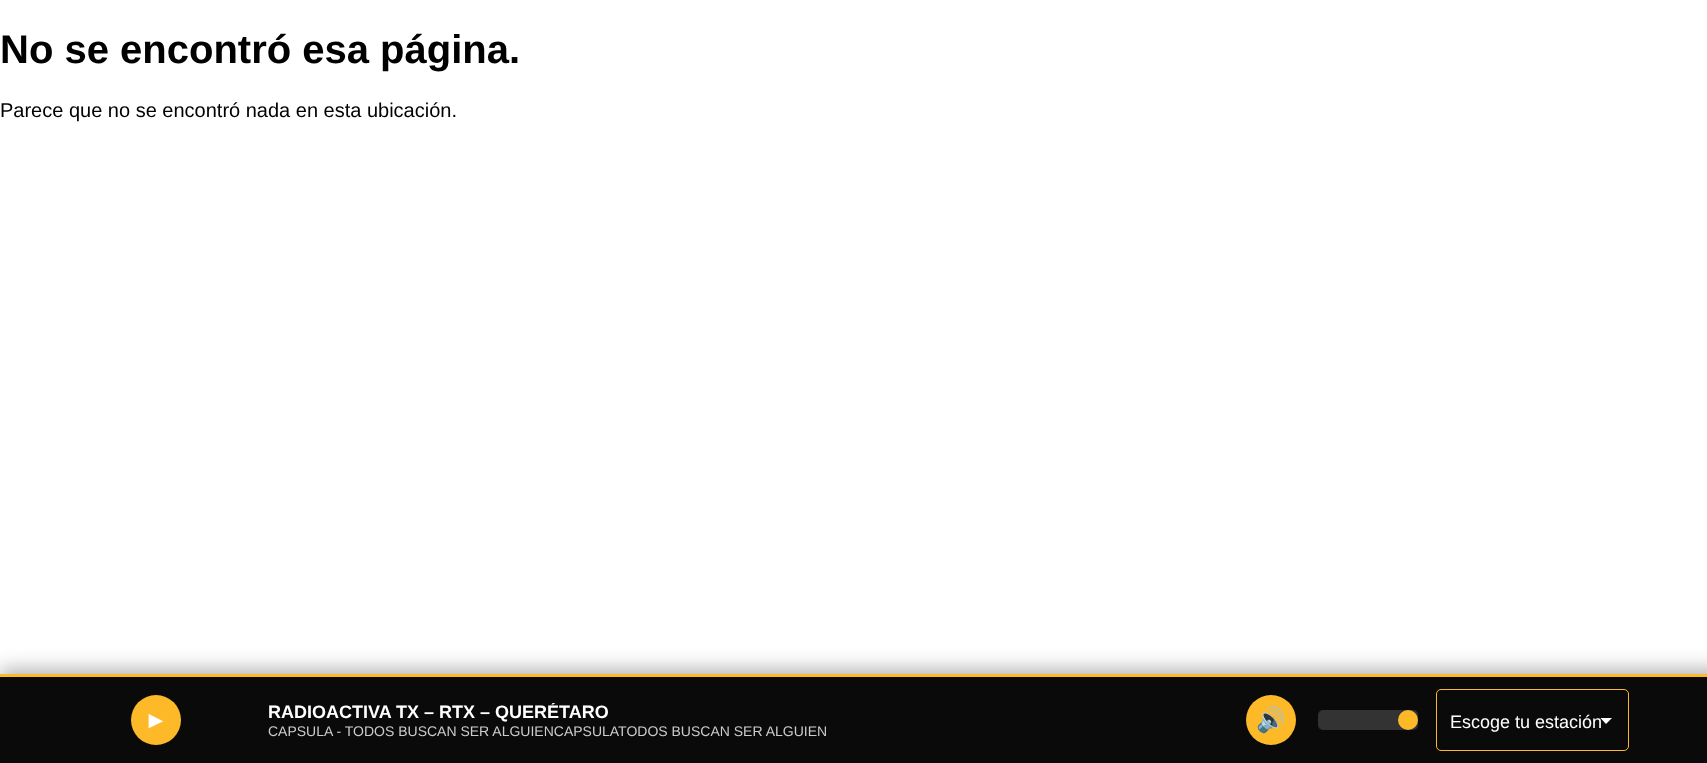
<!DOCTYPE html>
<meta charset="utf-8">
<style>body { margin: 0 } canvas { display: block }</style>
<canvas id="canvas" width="1707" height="763"></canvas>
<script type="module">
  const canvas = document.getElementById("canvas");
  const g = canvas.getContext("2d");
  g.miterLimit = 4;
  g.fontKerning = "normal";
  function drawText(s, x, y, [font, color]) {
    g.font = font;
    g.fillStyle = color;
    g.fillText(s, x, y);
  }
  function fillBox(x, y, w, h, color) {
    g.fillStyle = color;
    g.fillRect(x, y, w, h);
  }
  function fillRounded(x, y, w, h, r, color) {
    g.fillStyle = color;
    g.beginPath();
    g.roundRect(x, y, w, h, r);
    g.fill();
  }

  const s1 = ["bold 40px Liberation Sans", "#000000"];
  const s2 = ["20px Liberation Sans", "#000000"];
  const s3 = ["24px Liberation Sans", "#FFFFFF"];
  const s4 = ["bold 18px Liberation Sans", "#FFFFFF"];
  const s5 = ["14px Liberation Sans", "#CCCCCC"];
  const s6 = ["24px Noto Color Emoji", "#FFFFFF"];
  const s7 = ["18px Liberation Sans", "#FFFFFF"];

  fillBox(0, 0, 1707, 763, "#FFFFFF");
  drawText("No se encontró esa página.", 0, 63, s1);
  drawText("Parece que no se encontró nada en esta ubicación.", 0, 117, s2);
  g.fillStyle = "rgba(0, 0, 0, 0.3)";
  g.filter = "blur(9.5px)";
  g.beginPath();
  g.rect(0, 669, 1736, 90);
  g.fill();
  g.filter = "none";
  fillBox(0, 677, 1707, 86, "#0A0A0A");
  fillBox(0, 674, 1707, 3, "#FEB929");
  g.beginPath();
  g.arc(156, 720, 25, 0, Math.PI * 2);
  g.fill();
  drawText("►", 144, 728, s3);
  g.save();
  g.beginPath();
  g.rect(268, 703, 558, 36);
  g.clip();
  drawText("RADIOACTIVA TX – RTX – QUERÉTARO", 268, 718, s4);
  g.restore();
  drawText("CAPSULA - TODOS BUSCAN SER ALGUIENCAPSULATODOS BUSCAN SER ALGUIEN", 268, 736, s5);
  g.fillStyle = "#FEB929";
  g.beginPath();
  g.arc(1271, 720, 25, 0, Math.PI * 2);
  g.fill();
  drawText("🔊", 1256, 728, s6);
  fillRounded(1318, 710, 100, 20, 5, "#333333");
  g.fillStyle = "#FEB929";
  g.beginPath();
  g.arc(1408, 720, 10, 0, Math.PI * 2);
  g.fill();
  g.save();
  g.beginPath();
  g.rect(1600, 718, 13, 6);
  g.clip();
  g.fillStyle = "#FFFFFF";
  g.beginPath();
  g.moveTo(1600, 717.5);
  g.lineTo(1606, 724);
  g.lineTo(1612.5, 717.5);
  g.closePath();
  g.fill();
  g.restore();
  g.beginPath();
  g.roundRect(1436.5, 689.5, 192, 61, 4.5);
  g.strokeStyle = "#FEB929";
  g.stroke();
  drawText("Escoge tu estación", 1450, 728, s7);
</script>
